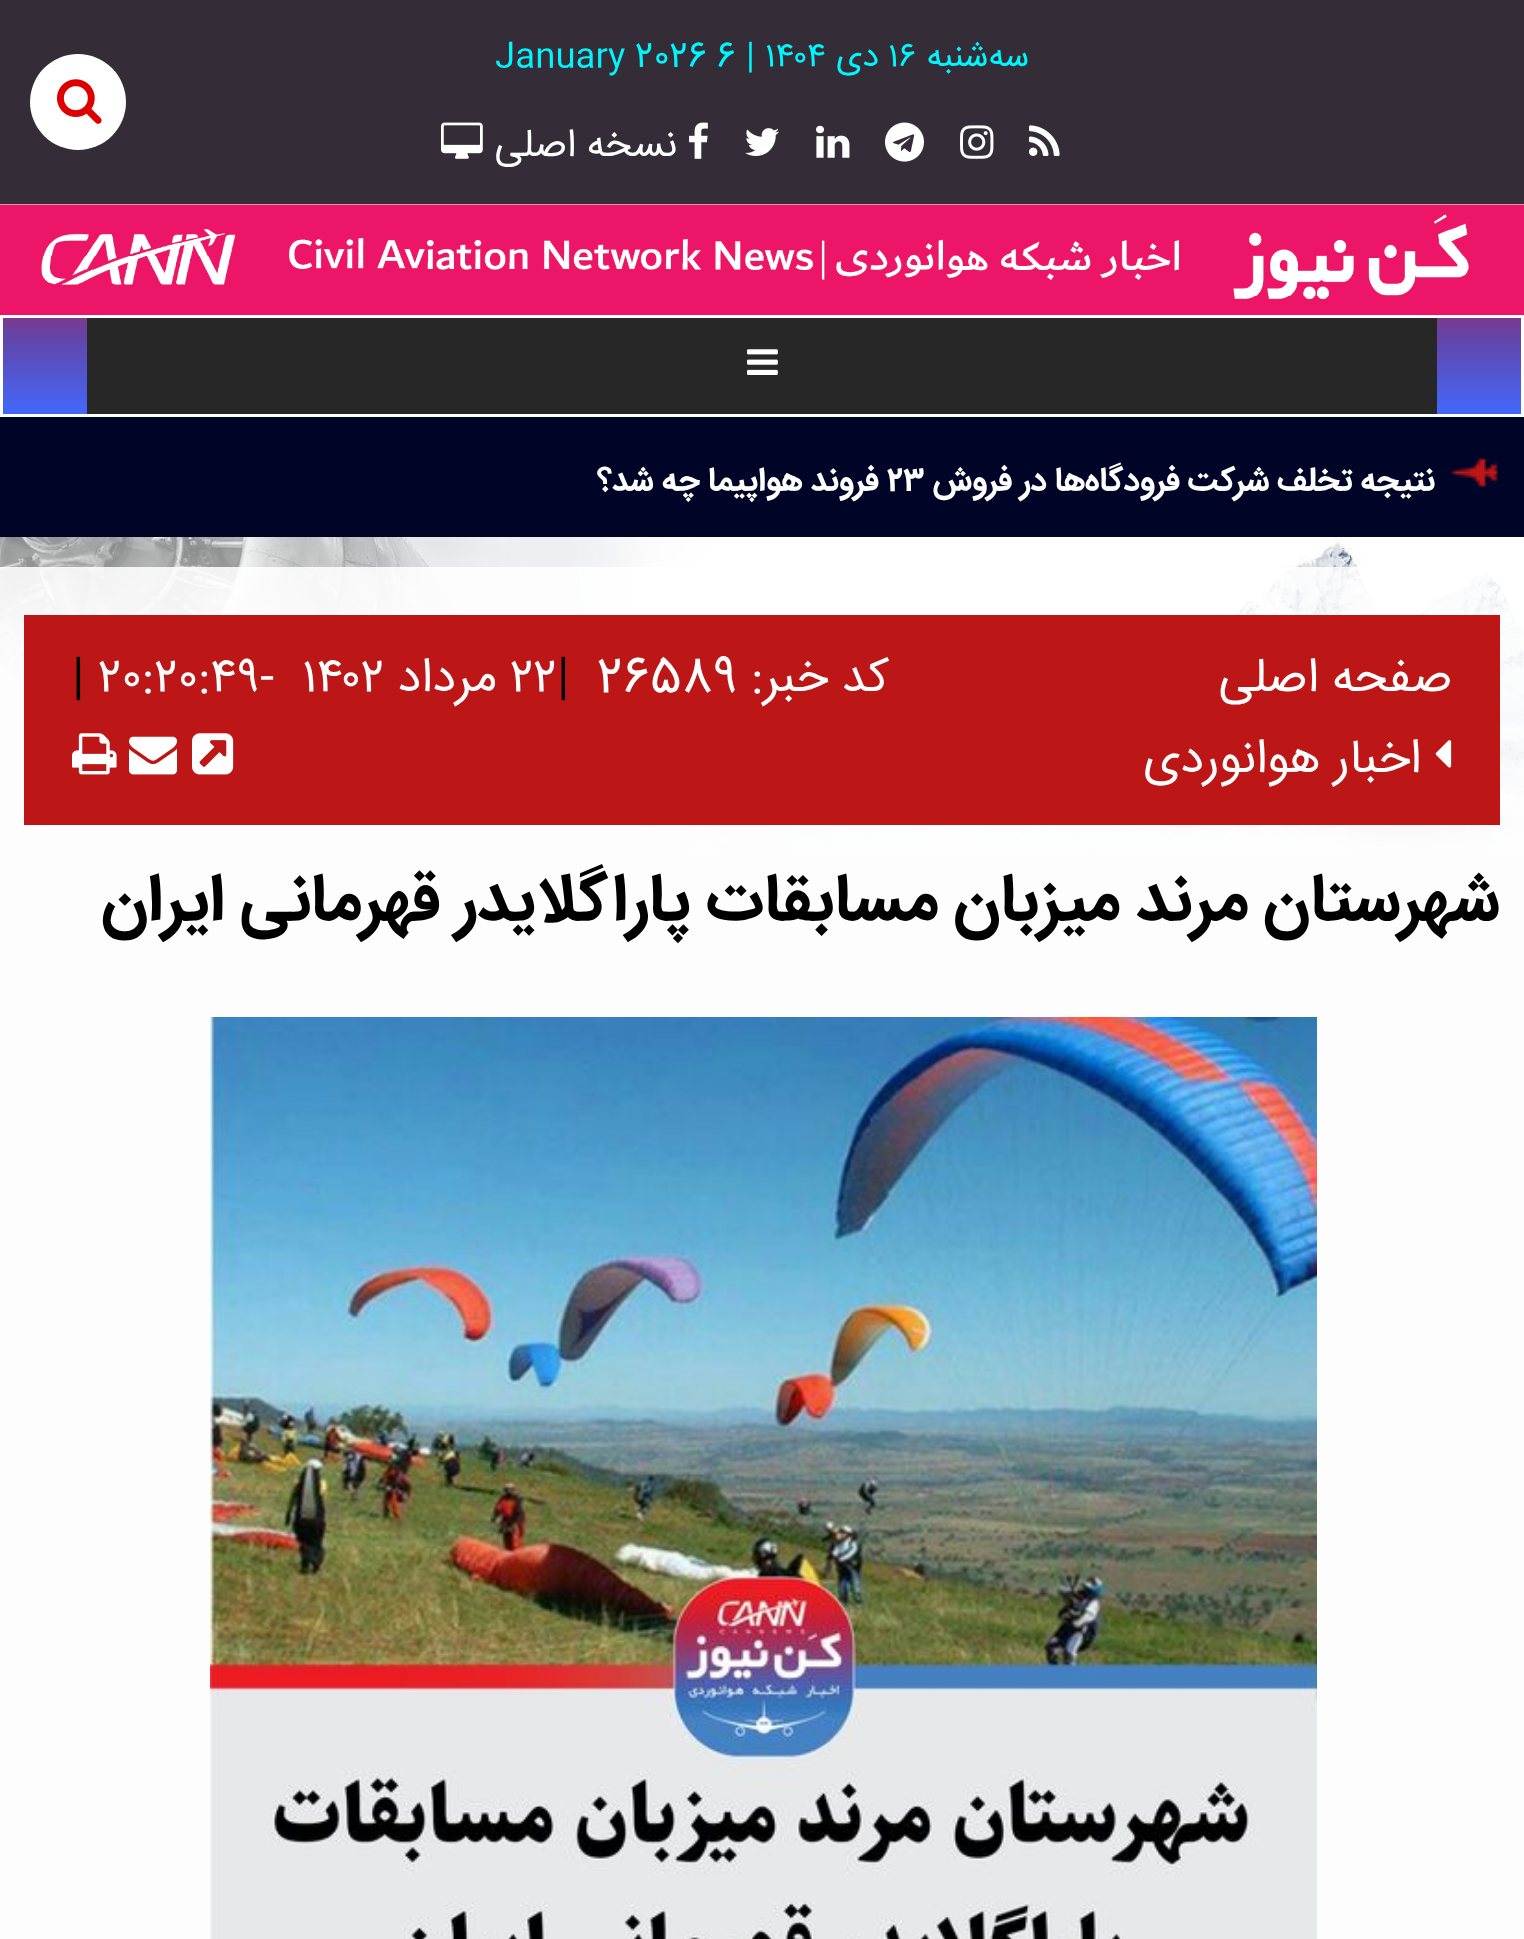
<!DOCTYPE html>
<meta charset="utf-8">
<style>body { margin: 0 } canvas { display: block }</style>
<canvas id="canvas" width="1524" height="1939"></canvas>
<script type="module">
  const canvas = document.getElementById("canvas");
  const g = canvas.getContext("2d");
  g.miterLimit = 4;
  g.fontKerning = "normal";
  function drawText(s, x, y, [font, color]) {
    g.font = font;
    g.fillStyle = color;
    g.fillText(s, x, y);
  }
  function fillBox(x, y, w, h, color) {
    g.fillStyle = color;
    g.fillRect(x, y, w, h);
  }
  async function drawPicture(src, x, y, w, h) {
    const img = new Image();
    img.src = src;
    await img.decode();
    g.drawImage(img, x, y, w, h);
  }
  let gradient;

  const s1 = ["34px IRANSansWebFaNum", "#00F6FF"];
  const s2 = ["39px IRANSansWebFaNum", "#FFFFFF"];
  const s3 = ["bold 33px IRANSansWebFaNum", "#FFFFFF"];
  const s4 = ["48px IRANSansWebFaNum", "#FFFFFF"];
  const s5 = ["48px IRANSansWebFaNum", "#000000"];
  const s6 = ["bold 66px IRANSansWebFaNum", "#000000"];

  fillBox(0, 0, 1524, 1939, "#342C37");
  g.direction = "rtl";
  drawText("سه‌شنبه", 1029, 66, s1);
  g.direction = "ltr";
  drawText("۱۶", 888, 66, s1);
  g.direction = "rtl";
  drawText("دی", 879, 66, s1);
  g.direction = "ltr";
  drawText("۱۴۰۴", 765, 66, s1);
  drawText("|", 746, 66, s1);
  drawText("January 2026 6", 495, 66, s1);
  await drawPicture("pic1.png", 1029, 125, 31, 31);
  await drawPicture("pic2.png", 960, 125, 34, 34);
  await drawPicture("pic3.png", 885, 122, 39, 40);
  await drawPicture("pic4.png", 816, 125, 34, 33);
  await drawPicture("pic5.png", 745, 128, 35, 28);
  await drawPicture("pic6.png", 689, 122, 19, 37);
  g.direction = "rtl";
  drawText("نسخه اصلی", 677, 156, s2);
  await drawPicture("pic7.png", 441, 122, 42, 37);
  fillBox(0, 851, 1524, 1088, "#EFF0F2");
  await drawPicture("pic8.png", 0, 537, 1524, 314);
  gradient = g.createLinearGradient(762, 204, 762, 417);
  gradient.addColorStop(0, "#DDDDE2");
  gradient.addColorStop(0.02, "#FF0000");
  gradient.addColorStop(0.63, "#6245A9");
  gradient.addColorStop(1, "#4169FF");
  g.fillStyle = gradient;
  g.fillRect(0, 204, 1524, 210);
  g.fillStyle = "#FFFFFF";
  g.beginPath();
  g.arc(78, 102, 48, 0, Math.PI * 2);
  g.fill();
  await drawPicture("pic9.png", 57, 79, 45, 45);
  await drawPicture("pic10.png", 0, 204, 1524, 111);
  g.strokeStyle = "#FEFFFF";
  g.lineWidth = 3;
  g.strokeRect(1.5, 316.5, 1521, 99);
  fillBox(87, 318, 1350, 96, "#272727");
  await drawPicture("pic11.png", 747, 349, 31, 26);
  fillBox(0, 417, 1524, 120, "#000528");
  await drawPicture("pic12.png", 1451, 458, 47, 29);
  drawText("نتیجه تخلف شرکت", 1435, 490, s3);
  drawText("فرودگاه‌ها در فروش", 1180, 490, s3);
  g.direction = "ltr";
  drawText("۲۳", 887, 490, s3);
  g.direction = "rtl";
  drawText("فروند هواپیما چه شد؟", 879, 490, s3);
  fillBox(0, 567, 1524, 1372, "rgba(255, 255, 255, 0.87)");
  fillBox(24, 615, 1476, 210, "#BC1616");
  drawText("صفحه اصلی", 1452, 691, s4);
  await drawPicture("pic13.png", 1435, 740, 17, 28);
  drawText("اخبار هوانوردی", 1421, 772, s4);
  drawText("کد خبر:", 889, 691, s4);
  g.direction = "ltr";
  drawText("26589", 597, 691, s4);
  drawText("|", 557, 691, s5);
  drawText("۲۲", 510, 691, s4);
  g.direction = "rtl";
  drawText("مرداد", 497, 691, s4);
  g.direction = "ltr";
  drawText("۱۴۰۲", 302, 691, s4);
  drawText("۲۰:۲۰:۴۹-", 98, 691, s4);
  drawText("|", 72, 691, s5);
  await drawPicture("pic14.png", 192, 733, 42, 42);
  await drawPicture("pic15.png", 129, 736, 48, 39);
  await drawPicture("pic16.png", 72, 733, 45, 42);
  g.direction = "rtl";
  drawText("شهرستان مرند میزبان مسابقات پاراگلایدر قهرمانی ایران", 1500, 919, s6);
  await drawPicture("pic17.png", 210, 1017, 1107, 922);
</script>
